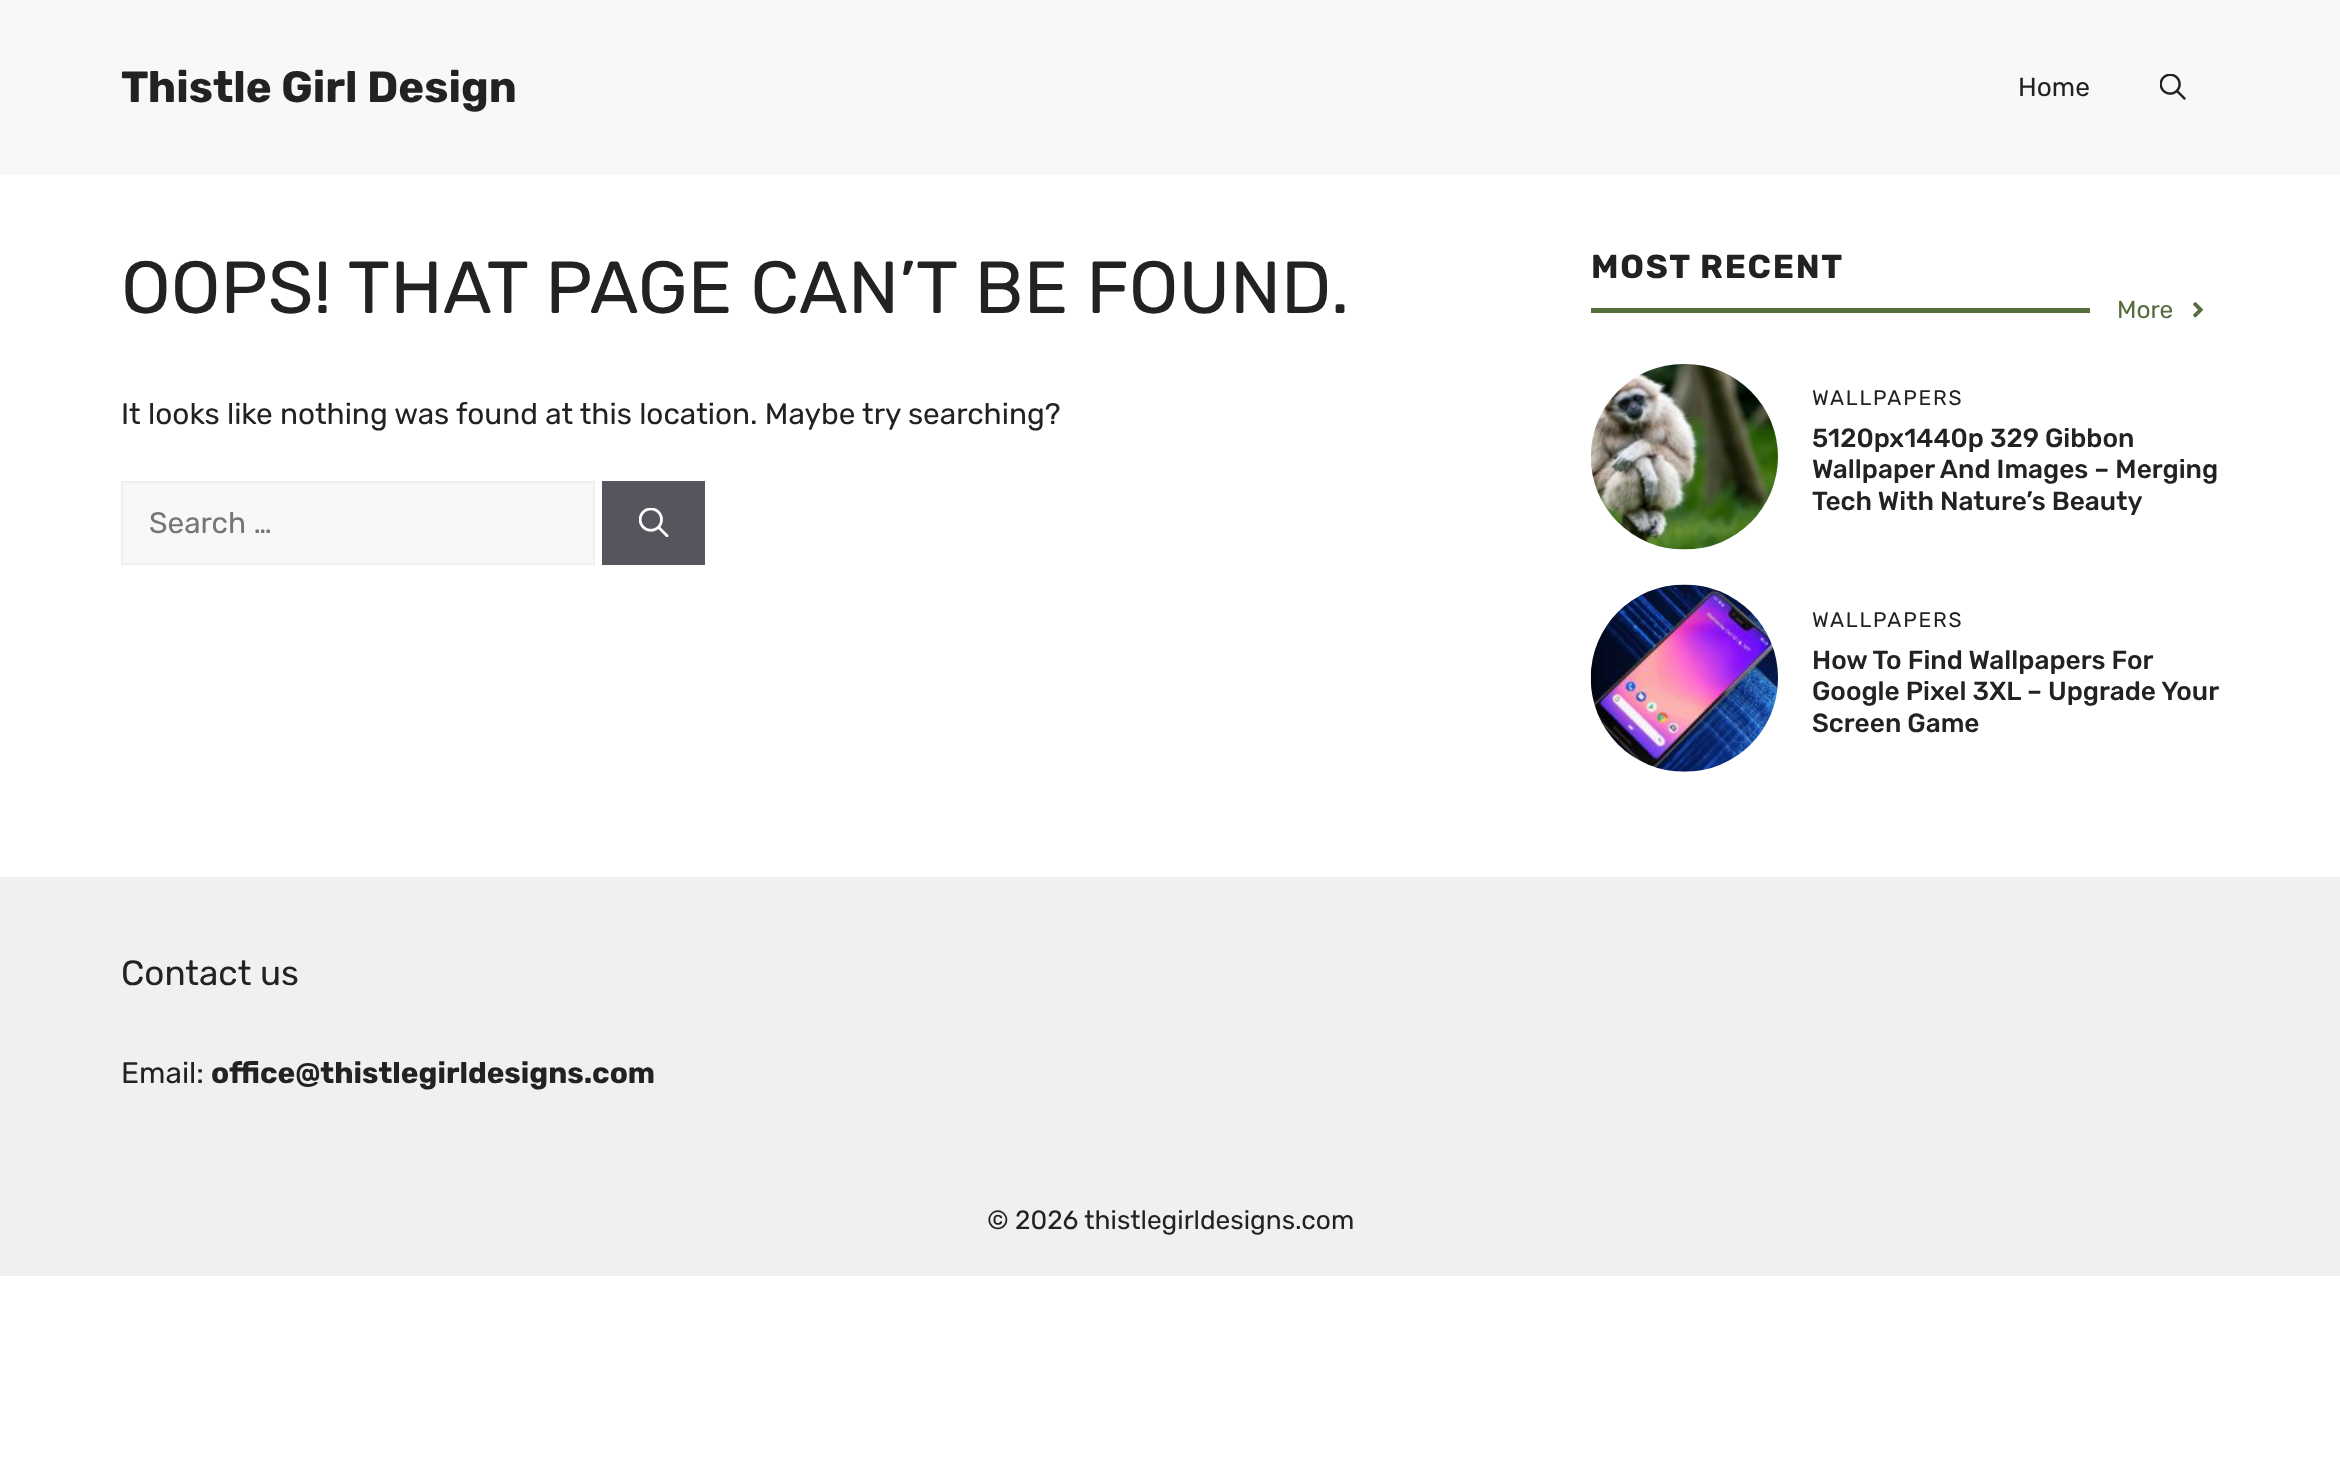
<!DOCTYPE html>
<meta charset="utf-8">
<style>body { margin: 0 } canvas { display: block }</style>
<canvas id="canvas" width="2340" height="1469"></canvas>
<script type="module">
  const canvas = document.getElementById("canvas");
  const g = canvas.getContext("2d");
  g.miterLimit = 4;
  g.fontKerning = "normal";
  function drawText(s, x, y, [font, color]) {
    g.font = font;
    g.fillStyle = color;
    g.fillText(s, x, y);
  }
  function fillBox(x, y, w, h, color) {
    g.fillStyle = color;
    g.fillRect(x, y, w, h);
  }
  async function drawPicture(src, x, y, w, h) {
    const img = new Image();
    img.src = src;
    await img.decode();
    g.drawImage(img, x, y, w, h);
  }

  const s1 = ["bold 43.75px Rubik", "#222222"];
  const s2 = ["26.25px Rubik", "#222222"];
  const s3 = ["73.5px Rubik", "#222222"];
  const s4 = ["29.75px Rubik", "#222222"];
  const s5 = ["29.75px Rubik", "#757575"];
  const s6 = ["bold 33.25px Rubik", "#222222"];
  const s7 = ["24.5px Rubik", "#566E3D"];
  const s8 = ["21px Rubik", "#222222"];
  const s9 = ["500 26.25px Rubik", "#222222"];
  const s10 = ["35px Rubik", "#222222"];
  const s11 = ["bold 29.75px Rubik", "#222222"];

  fillBox(0, 0, 2340, 1469, "#FFFFFF");
  fillBox(0, 0, 2340, 175, "#F7F8F9");
  drawText("Thistle Girl Design", 121, 102, s1);
  drawText("Home", 2018, 96, s2);
  await drawPicture("pic1.png", 2160, 74, 26, 26);
  drawText("OOPS! THAT PAGE CAN’T BE FOUND.", 121, 313, s3);
  drawText("It looks like nothing was found at this location. Maybe try searching?", 121, 424, s4);
  g.fillStyle = "#F7F8F9";
  g.beginPath();
  g.rect(122, 482, 472, 82);
  g.fill();
  g.strokeStyle = "#F0F0F0";
  g.lineWidth = 2;
  g.stroke();
  drawText("Search …", 149, 533, s5);
  fillBox(602, 481, 103, 84, "#55555E");
  await drawPicture("pic2.png", 639, 508, 30, 29);
  g.letterSpacing = "1.75px";
  drawText("MOST RECENT", 1591, 278, s6);
  fillBox(1591, 308, 499, 5, "#566E3D");
  g.letterSpacing = "0px";
  drawText("More", 2117, 318, s7);
  await drawPicture("pic3.png", 2193, 302, 10, 16);
  await drawPicture("pic4.png", 1590, 364, 188, 186);
  g.letterSpacing = "1.75px";
  drawText("WALLPAPERS", 1812, 405, s8);
  g.letterSpacing = "0px";
  drawText("5120px1440p 329 Gibbon", 1812, 447, s9);
  drawText("Wallpaper And Images – Merging", 1812, 478, s9);
  drawText("Tech With Nature’s Beauty", 1812, 510, s9);
  await drawPicture("pic5.png", 1590, 584, 188, 188);
  g.letterSpacing = "1.75px";
  drawText("WALLPAPERS", 1812, 627, s8);
  g.letterSpacing = "0px";
  drawText("How To Find Wallpapers For", 1812, 669, s9);
  drawText("Google Pixel 3XL – Upgrade Your", 1812, 700, s9);
  drawText("Screen Game", 1812, 732, s9);
  fillBox(0, 877, 2340, 399, "#F0F0F0");
  drawText("Contact us", 121, 985, s10);
  drawText("Email:", 121, 1083, s4);
  drawText("office@thistlegirldesigns.com", 211, 1083, s11);
  drawText("© 2026 thistlegirldesigns.com", 987, 1229, s2);
</script>
